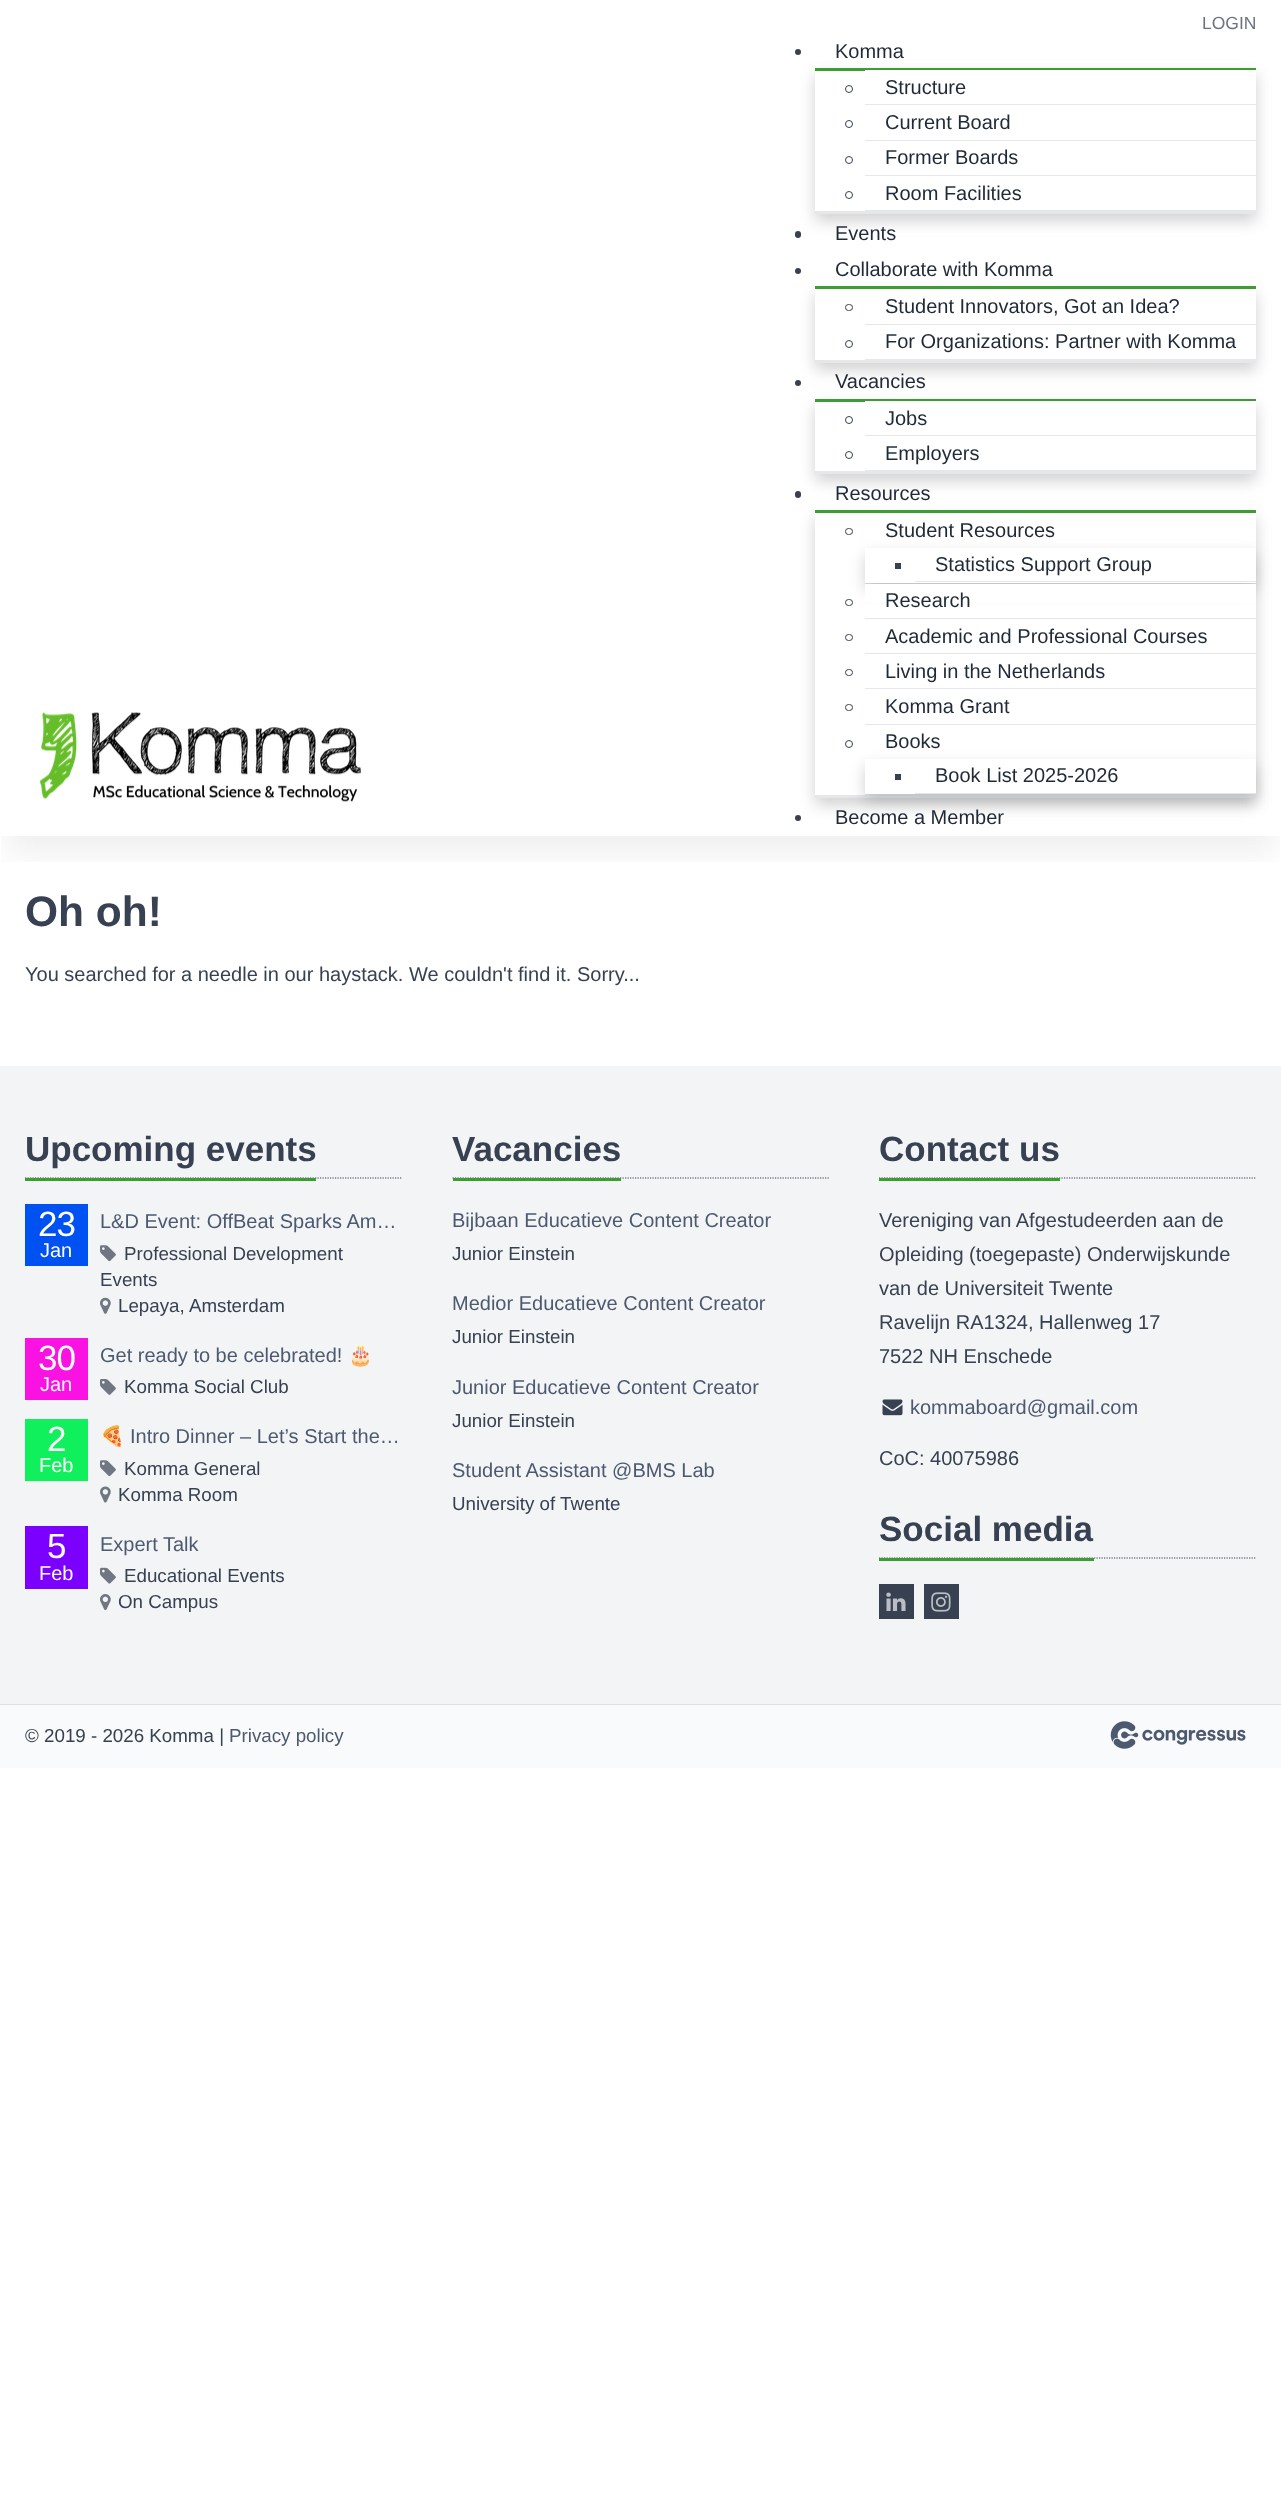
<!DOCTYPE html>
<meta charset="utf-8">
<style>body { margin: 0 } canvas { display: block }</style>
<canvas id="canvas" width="1281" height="2499"></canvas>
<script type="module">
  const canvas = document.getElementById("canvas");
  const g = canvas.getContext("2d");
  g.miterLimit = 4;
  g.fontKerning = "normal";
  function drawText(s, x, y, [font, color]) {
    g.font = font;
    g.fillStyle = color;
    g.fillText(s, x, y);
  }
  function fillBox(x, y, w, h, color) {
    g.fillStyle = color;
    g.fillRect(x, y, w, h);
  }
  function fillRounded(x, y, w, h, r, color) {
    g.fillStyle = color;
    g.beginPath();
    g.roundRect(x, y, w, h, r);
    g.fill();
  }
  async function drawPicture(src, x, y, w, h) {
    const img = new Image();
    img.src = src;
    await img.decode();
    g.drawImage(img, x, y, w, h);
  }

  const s1 = ["17.5px Liberation Sans", "#6B7280"];
  const s2 = ["20px Liberation Sans", "#1F2937"];
  const s3 = ["bold 42.5px Liberation Sans", "#374151"];
  const s4 = ["20px Liberation Sans", "#374151"];
  const s5 = ["bold 35px Liberation Sans", "#374151"];
  const s6 = ["35px Liberation Sans", "#FEFEFE"];
  const s7 = ["20px Liberation Sans", "#FEFEFE"];
  const s8 = ["20px Liberation Sans", "#4C596F"];
  const s9 = ["18.75px Liberation Sans", "#374151"];
  const s10 = ["20px Noto Color Emoji", "#4C596F"];
  const s11 = ["18.75px Liberation Sans", "#4C596F"];

  fillBox(0, 0, 1281, 2499, "#FFFFFF");
  g.save();
  g.beginPath();
  g.rect(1, 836, 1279, 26);
  g.clip();
  g.fillStyle = "rgba(0, 0, 0, 0.06)";
  g.filter = "blur(15.5px)";
  g.beginPath();
  g.rect(6, 31, 1269, 824);
  g.fill();
  g.filter = "none";
  g.restore();
  drawText("LOGIN", 1202, 29, s1);
  await drawPicture("pic1.png", 39, 712, 322, 90);
  g.save();
  g.beginPath();
  g.moveTo(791, 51);
  g.lineTo(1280, 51);
  g.lineTo(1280, 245);
  g.lineTo(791, 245);
  g.closePath();
  g.moveTo(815, 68);
  g.lineTo(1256, 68);
  g.lineTo(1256, 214);
  g.lineTo(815, 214);
  g.closePath();
  g.clip("evenodd");
  g.fillStyle = "rgba(0, 0, 0, 0.18)";
  g.filter = "blur(7.5px)";
  g.beginPath();
  g.rect(815, 75, 441, 146);
  g.fill();
  g.filter = "none";
  g.restore();
  g.fillStyle = "#374151";
  g.beginPath();
  g.arc(798, 52, 3, 0, Math.PI * 2);
  g.fill();
  drawText("Komma", 835, 58, s2);
  fillBox(815, 68, 441, 3, "#3E9C35");
  fillBox(815, 211, 441, 3, "#E5E7EB");
  fillBox(865, 70, 391, 1, "#FFFFFF");
  fillBox(865, 104, 391, 1, "#E5E7EB");
  g.beginPath();
  g.arc(849, 89, 3.5, 0, Math.PI * 2);
  g.strokeStyle = "#374151";
  g.stroke();
  drawText("Structure", 885, 94, s2);
  fillBox(865, 140, 391, 1, "#E5E7EB");
  g.beginPath();
  g.arc(849, 124, 3.5, 0, Math.PI * 2);
  g.stroke();
  drawText("Current Board", 885, 129, s2);
  fillBox(865, 175, 391, 1, "#E5E7EB");
  g.beginPath();
  g.arc(849, 160, 3.5, 0, Math.PI * 2);
  g.stroke();
  drawText("Former Boards", 885, 164, s2);
  fillBox(865, 210, 391, 1, "#E5E7EB");
  g.beginPath();
  g.arc(849, 195, 3.5, 0, Math.PI * 2);
  g.stroke();
  drawText("Room Facilities", 885, 200, s2);
  fillRounded(795, 231, 6, 7, 3, "#374151");
  drawText("Events", 835, 240, s2);
  g.save();
  g.beginPath();
  g.moveTo(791, 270);
  g.lineTo(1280, 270);
  g.lineTo(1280, 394);
  g.lineTo(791, 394);
  g.closePath();
  g.moveTo(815, 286);
  g.lineTo(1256, 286);
  g.lineTo(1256, 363);
  g.lineTo(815, 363);
  g.closePath();
  g.clip("evenodd");
  g.fillStyle = "rgba(0, 0, 0, 0.18)";
  g.filter = "blur(7.5px)";
  g.beginPath();
  g.rect(815, 294, 441, 76);
  g.fill();
  g.filter = "none";
  g.restore();
  g.fillStyle = "#374151";
  g.beginPath();
  g.arc(798, 271, 3, 0, Math.PI * 2);
  g.fill();
  drawText("Collaborate with Komma", 835, 276, s2);
  fillBox(815, 286, 441, 3, "#3E9C35");
  fillBox(815, 360, 441, 3, "#E5E7EB");
  fillBox(865, 324, 391, 1, "#E5E7EB");
  g.beginPath();
  g.roundRect(845.5, 304.5, 7, 6, 3);
  g.stroke();
  drawText("Student Innovators, Got an Idea?", 885, 313, s2);
  fillBox(865, 359, 391, 1, "#E5E7EB");
  g.beginPath();
  g.arc(849, 344, 3.5, 0, Math.PI * 2);
  g.stroke();
  drawText("For Organizations: Partner with Komma", 885, 348, s2);
  g.save();
  g.beginPath();
  g.moveTo(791, 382);
  g.lineTo(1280, 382);
  g.lineTo(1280, 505);
  g.lineTo(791, 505);
  g.closePath();
  g.moveTo(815, 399);
  g.lineTo(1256, 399);
  g.lineTo(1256, 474);
  g.lineTo(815, 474);
  g.closePath();
  g.clip("evenodd");
  g.fillStyle = "rgba(0, 0, 0, 0.18)";
  g.filter = "blur(7.5px)";
  g.beginPath();
  g.rect(815, 406, 441, 75);
  g.fill();
  g.filter = "none";
  g.restore();
  g.fillStyle = "#374151";
  g.beginPath();
  g.arc(798, 383, 3, 0, Math.PI * 2);
  g.fill();
  drawText("Vacancies", 835, 388, s2);
  fillBox(815, 399, 441, 3, "#3E9C35");
  fillBox(815, 471, 441, 3, "#E5E7EB");
  fillBox(865, 401, 391, 1, "#FFFFFF");
  fillBox(865, 435, 391, 1, "#E5E7EB");
  g.beginPath();
  g.arc(849, 420, 3.5, 0, Math.PI * 2);
  g.stroke();
  drawText("Jobs", 885, 425, s2);
  fillBox(865, 470, 391, 1, "#E5E7EB");
  g.beginPath();
  g.arc(849, 455, 3.5, 0, Math.PI * 2);
  g.stroke();
  drawText("Employers", 885, 460, s2);
  g.save();
  g.beginPath();
  g.moveTo(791, 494);
  g.lineTo(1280, 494);
  g.lineTo(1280, 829);
  g.lineTo(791, 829);
  g.closePath();
  g.moveTo(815, 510);
  g.lineTo(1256, 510);
  g.lineTo(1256, 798);
  g.lineTo(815, 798);
  g.closePath();
  g.clip("evenodd");
  g.fillStyle = "rgba(0, 0, 0, 0.18)";
  g.filter = "blur(7.5px)";
  g.beginPath();
  g.rect(815, 518, 441, 287);
  g.fill();
  g.filter = "none";
  g.restore();
  fillRounded(795, 491, 6, 7, 3, "#374151");
  drawText("Resources", 835, 500, s2);
  fillBox(815, 510, 441, 3, "#3E9C35");
  fillBox(815, 795, 441, 3, "#E5E7EB");
  fillBox(865, 583, 391, 1, "#E5E7EB");
  g.save();
  g.beginPath();
  g.moveTo(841, 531);
  g.lineTo(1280, 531);
  g.lineTo(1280, 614);
  g.lineTo(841, 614);
  g.closePath();
  g.moveTo(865, 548);
  g.lineTo(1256, 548);
  g.lineTo(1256, 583);
  g.lineTo(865, 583);
  g.closePath();
  g.clip("evenodd");
  g.fillStyle = "rgba(0, 0, 0, 0.18)";
  g.filter = "blur(7.5px)";
  g.beginPath();
  g.rect(865, 555, 391, 35);
  g.fill();
  g.filter = "none";
  g.restore();
  g.beginPath();
  g.roundRect(845.5, 528.5, 7, 6, 3);
  g.stroke();
  drawText("Student Resources", 885, 537, s2);
  fillBox(915, 582, 341, 1, "#FFFFFF");
  fillBox(915, 581, 341, 1, "#E5E7EB");
  fillBox(895, 563, 6, 6, "#374151");
  drawText("Statistics Support Group", 935, 571, s2);
  fillBox(865, 584, 391, 18, "#FFFFFF");
  fillBox(865, 618, 391, 1, "#E5E7EB");
  g.beginPath();
  g.roundRect(845.5, 599.5, 7, 6, 3);
  g.stroke();
  drawText("Research", 885, 607, s2);
  fillBox(865, 653, 391, 1, "#E5E7EB");
  g.beginPath();
  g.roundRect(845.5, 634.5, 7, 6, 3);
  g.stroke();
  drawText("Academic and Professional Courses", 885, 643, s2);
  fillBox(865, 688, 391, 1, "#E5E7EB");
  g.beginPath();
  g.roundRect(845.5, 669.5, 7, 6, 3);
  g.stroke();
  drawText("Living in the Netherlands", 885, 678, s2);
  fillBox(865, 724, 391, 1, "#E5E7EB");
  g.beginPath();
  g.roundRect(845.5, 704.5, 7, 6, 3);
  g.stroke();
  drawText("Komma Grant", 885, 713, s2);
  fillBox(865, 794, 391, 1, "#E5E7EB");
  g.save();
  g.beginPath();
  g.moveTo(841, 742);
  g.lineTo(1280, 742);
  g.lineTo(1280, 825);
  g.lineTo(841, 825);
  g.closePath();
  g.moveTo(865, 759);
  g.lineTo(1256, 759);
  g.lineTo(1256, 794);
  g.lineTo(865, 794);
  g.closePath();
  g.clip("evenodd");
  g.fillStyle = "rgba(0, 0, 0, 0.18)";
  g.filter = "blur(7.5px)";
  g.beginPath();
  g.rect(865, 766, 391, 35);
  g.fill();
  g.filter = "none";
  g.restore();
  g.beginPath();
  g.arc(849, 744, 3.5, 0, Math.PI * 2);
  g.stroke();
  drawText("Books", 885, 748, s2);
  fillBox(915, 793, 341, 1, "#E5E7EB");
  fillBox(895, 774, 6, 6, "#374151");
  drawText("Book List 2025-2026", 935, 782, s2);
  g.fillStyle = "#374151";
  g.beginPath();
  g.arc(798, 818, 3, 0, Math.PI * 2);
  g.fill();
  drawText("Become a Member", 835, 824, s2);
  drawText("Oh oh!", 25, 926, s3);
  drawText("You searched for a needle in our haystack. We couldn't find it. Sorry...", 25, 981, s4);
  fillBox(0, 1066, 1281, 638, "#F3F4F6");
  g.beginPath();
  g.moveTo(25, 1178);
  g.lineTo(402.5, 1178);
  g.lineWidth = 1.2;
  g.setLineDash([1.25, 1.25]);
  g.stroke();
  fillBox(25, 1178, 291, 3, "#3E9C35");
  drawText("Upcoming events", 25, 1161, s5);
  fillBox(25, 1204, 63, 62, "#0051F2");
  g.letterSpacing = "-1px";
  drawText("23", 38, 1236, s6);
  g.letterSpacing = "0px";
  drawText("Jan", 40, 1257, s7);
  drawText("L&D Event: OffBeat Sparks Am…", 100, 1228, s8);
  await drawPicture("pic2.png", 100, 1245, 16, 17);
  drawText("Professional Development", 124, 1260, s9);
  drawText("Events", 100, 1286, s9);
  await drawPicture("pic3.png", 100, 1297, 11, 17);
  drawText("Lepaya, Amsterdam", 118, 1312, s9);
  fillBox(25, 1338, 63, 62, "#F912E2");
  g.letterSpacing = "-1px";
  drawText("30", 38, 1370, s6);
  g.letterSpacing = "0px";
  drawText("Jan", 40, 1391, s7);
  drawText("Get ready to be celebrated!", 100, 1362, s8);
  drawText("🎂", 348, 1362, s10);
  await drawPicture("pic4.png", 100, 1379, 16, 16);
  drawText("Komma Social Club", 124, 1393, s9);
  fillBox(25, 1419, 63, 62, "#10EF5C");
  g.letterSpacing = "-1px";
  drawText("2", 47, 1451, s6);
  g.letterSpacing = "0px";
  drawText("Feb", 39, 1472, s7);
  drawText("🍕", 100, 1443, s10);
  drawText("Intro Dinner – Let’s Start the…", 130, 1443, s8);
  await drawPicture("pic2.png", 100, 1460, 16, 17);
  drawText("Komma General", 124, 1475, s9);
  await drawPicture("pic5.png", 100, 1486, 11, 17);
  drawText("Komma Room", 118, 1501, s9);
  fillBox(25, 1526, 63, 63, "#7C00FF");
  g.letterSpacing = "-1px";
  drawText("5", 47, 1558, s6);
  g.letterSpacing = "0px";
  drawText("Feb", 39, 1580, s7);
  drawText("Expert Talk", 100, 1551, s8);
  await drawPicture("pic6.png", 100, 1567, 16, 17);
  drawText("Educational Events", 124, 1582, s9);
  await drawPicture("pic7.png", 100, 1594, 11, 16);
  drawText("On Campus", 118, 1608, s9);
  g.beginPath();
  g.moveTo(452.5, 1178);
  g.lineTo(829, 1178);
  g.stroke();
  fillBox(453, 1178, 168, 3, "#3E9C35");
  drawText("Vacancies", 452, 1161, s5);
  drawText("Bijbaan Educatieve Content Creator", 452, 1227, s8);
  drawText("Junior Einstein", 452, 1260, s9);
  drawText("Medior Educatieve Content Creator", 452, 1310, s8);
  drawText("Junior Einstein", 452, 1343, s9);
  drawText("Junior Educatieve Content Creator", 452, 1394, s8);
  drawText("Junior Einstein", 452, 1427, s9);
  drawText("Student Assistant @BMS Lab", 452, 1477, s8);
  drawText("University of Twente", 452, 1510, s9);
  g.beginPath();
  g.moveTo(879, 1178);
  g.lineTo(1256, 1178);
  g.stroke();
  fillBox(879, 1178, 181, 3, "#3E9C35");
  drawText("Contact us", 879, 1161, s5);
  drawText("Vereniging van Afgestudeerden aan de", 879, 1227, s4);
  drawText("Opleiding (toegepaste) Onderwijskunde", 879, 1261, s4);
  drawText("van de Universiteit Twente", 879, 1295, s4);
  drawText("Ravelijn RA1324, Hallenweg 17", 879, 1329, s4);
  drawText("7522 NH Enschede", 879, 1363, s4);
  await drawPicture("pic8.png", 882, 1399, 21, 17);
  drawText("kommaboard@gmail.com", 910, 1414, s8);
  drawText("CoC: 40075986", 879, 1465, s4);
  g.beginPath();
  g.moveTo(879, 1558);
  g.lineTo(1256, 1558);
  g.stroke();
  fillBox(879, 1558, 215, 3, "#3E9C35");
  drawText("Social media", 879, 1541, s5);
  fillBox(879, 1584, 35, 35, "#374151");
  await drawPicture("pic9.png", 886, 1592, 20, 19);
  fillBox(924, 1584, 35, 35, "#374151");
  await drawPicture("pic10.png", 931, 1592, 20, 20);
  fillBox(0, 1705, 1281, 63, "#F9FAFB");
  fillBox(0, 1704, 1281, 1, "#E0E1E2");
  drawText("© 2019 - 2026 Komma |", 25, 1742, s9);
  drawText("Privacy policy", 229, 1742, s11);
  await drawPicture("pic11.png", 1110, 1721, 136, 28);
</script>
